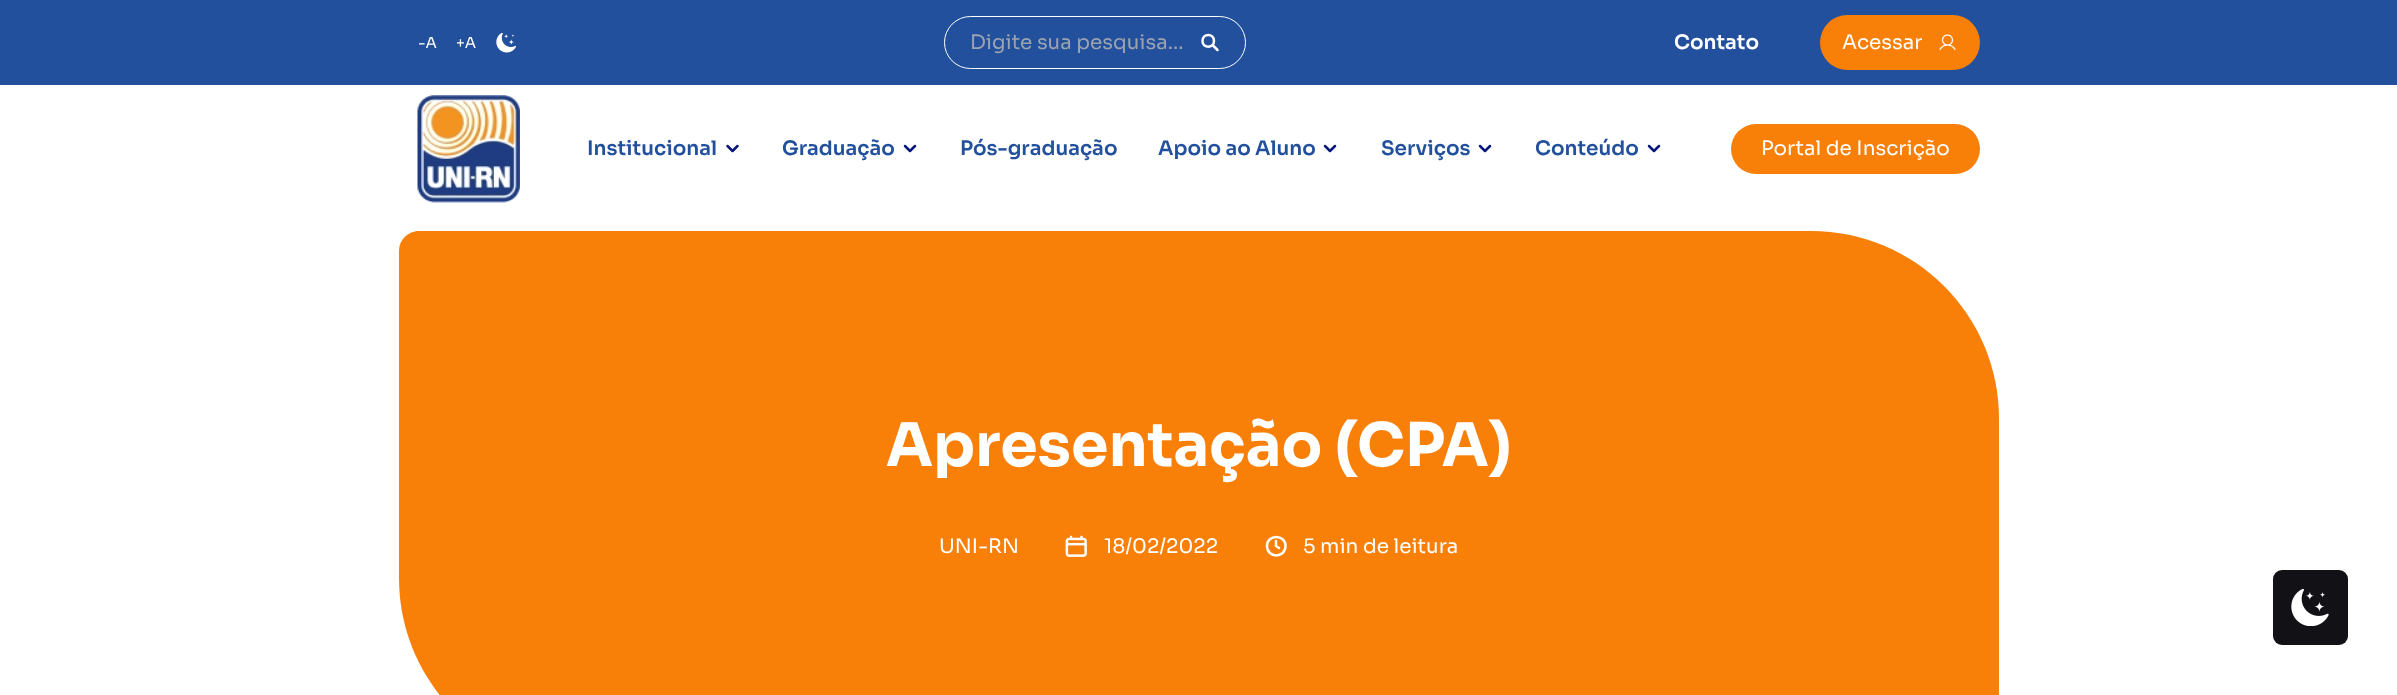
<!DOCTYPE html>
<meta charset="utf-8">
<style>body { margin: 0 } canvas { display: block }</style>
<canvas id="canvas" width="2397" height="695"></canvas>
<script type="module">
  const canvas = document.getElementById("canvas");
  const g = canvas.getContext("2d");
  g.miterLimit = 4;
  g.fontKerning = "normal";
  function drawText(s, x, y, [font, color]) {
    g.font = font;
    g.fillStyle = color;
    g.fillText(s, x, y);
  }
  function fillBox(x, y, w, h, color) {
    g.fillStyle = color;
    g.fillRect(x, y, w, h);
  }
  function fillRounded(x, y, w, h, r, color) {
    g.fillStyle = color;
    g.beginPath();
    g.roundRect(x, y, w, h, r);
    g.fill();
  }
  async function drawPicture(src, x, y, w, h) {
    const img = new Image();
    img.src = src;
    await img.decode();
    g.drawImage(img, x, y, w, h);
  }

  const s1 = ["15px Sora", "#FFFFFF"];
  const s2 = ["20px Sora", "#9CA3AF"];
  const s3 = ["600 20px Sora", "#FFFFFF"];
  const s4 = ["20px Sora", "#FFFFFF"];
  const s5 = ["600 20px Sora", "#22509D"];
  const s6 = ["bold 60px Sora", "#FFFFFF"];

  fillBox(0, 0, 2397, 695, "#FFFFFF");
  fillBox(0, 0, 2397, 85, "#22509D");
  drawText("-A", 418, 48, s1);
  drawText("+A", 456, 48, s1);
  await drawPicture("pic1.png", 496, 33, 20, 20);
  g.beginPath();
  g.roundRect(944.5, 16.5, 301, 52, 26);
  g.strokeStyle = "#FFFFFF";
  g.stroke();
  drawText("Digite sua pesquisa...", 970, 49, s2);
  g.beginPath();
  g.moveTo(1217.5, 50);
  g.lineTo(1212.5, 45);
  g.moveTo(1202.5, 41);
  g.bezierCurveTo(1202.5, 48.5, 1214, 48.5, 1214, 41);
  g.bezierCurveTo(1214, 33, 1202.5, 33, 1202.5, 41);
  g.closePath();
  g.strokeStyle = "#FEFEFE";
  g.lineWidth = 2.5;
  g.lineCap = "round";
  g.lineJoin = "round";
  g.stroke();
  drawText("Contato", 1674, 49, s3);
  fillRounded(1820, 15, 160, 55, 27.5, "#F87F08");
  drawText("Acessar", 1842, 49, s4);
  await drawPicture("pic2.png", 1939, 34, 17, 16);
  await drawPicture("pic3.png", 417, 95, 103, 108);
  drawText("Institucional", 587, 155, s5);
  g.beginPath();
  g.moveTo(727.5, 146);
  g.lineTo(732.5, 151);
  g.lineTo(737.5, 146);
  g.strokeStyle = "#08197B";
  g.stroke();
  drawText("Graduação", 782, 155, s5);
  g.beginPath();
  g.moveTo(905, 146);
  g.lineTo(910, 151);
  g.lineTo(915, 146);
  g.stroke();
  drawText("Pós-graduação", 960, 155, s5);
  drawText("Apoio ao Aluno", 1158, 155, s5);
  g.beginPath();
  g.moveTo(1325, 146);
  g.lineTo(1330, 151);
  g.lineTo(1335, 146);
  g.stroke();
  drawText("Serviços", 1381, 155, s5);
  g.beginPath();
  g.moveTo(1480, 146);
  g.lineTo(1485, 151);
  g.lineTo(1490, 146);
  g.stroke();
  drawText("Conteúdo", 1535, 155, s5);
  g.beginPath();
  g.moveTo(1649, 146);
  g.lineTo(1654, 151);
  g.lineTo(1659, 146);
  g.stroke();
  fillRounded(1731, 124, 249, 50, 25, "#F87F08");
  drawText("Portal de Inscrição", 1761, 155, s4);
  g.fillStyle = "#F87F08";
  g.beginPath();
  g.moveTo(419, 231);
  g.lineTo(1811, 231);
  g.bezierCurveTo(1915, 231, 1999, 315, 1999, 419);
  g.lineTo(1999, 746);
  g.bezierCurveTo(1999, 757, 1990, 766, 1979, 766);
  g.lineTo(587, 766);
  g.bezierCurveTo(483, 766, 399, 682, 399, 578);
  g.lineTo(399, 251);
  g.bezierCurveTo(399, 240, 408, 231, 419, 231);
  g.closePath();
  g.fill();
  drawText("Apresentação (CPA)", 886, 466, s6);
  drawText("UNI-RN", 939, 553, s4);
  await drawPicture("pic4.png", 1065, 535, 22, 22);
  drawText("18/02/2022", 1104, 553, s4);
  g.beginPath();
  g.moveTo(1276, 541);
  g.lineTo(1276, 546);
  g.lineTo(1279, 548);
  g.moveTo(1285.5, 546);
  g.bezierCurveTo(1285.5, 558.5, 1267, 558.5, 1267, 546);
  g.bezierCurveTo(1267, 534, 1285.5, 534, 1285.5, 546);
  g.closePath();
  g.strokeStyle = "#FFFFFF";
  g.stroke();
  drawText("5 min de leitura", 1303, 553, s4);
  fillRounded(2273, 570, 75, 75, 9, "#121116");
  await drawPicture("pic5.png", 2291, 589, 38, 37);
</script>
